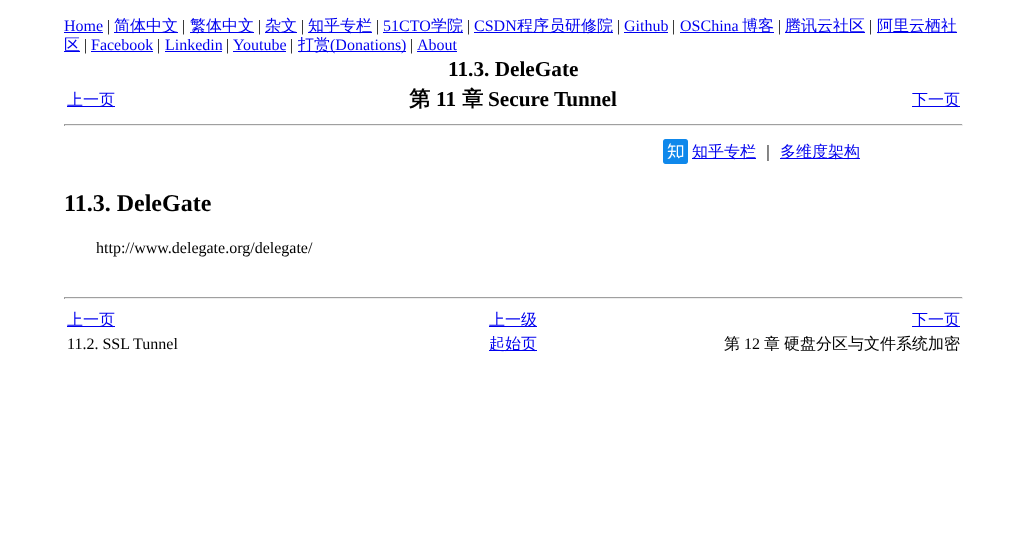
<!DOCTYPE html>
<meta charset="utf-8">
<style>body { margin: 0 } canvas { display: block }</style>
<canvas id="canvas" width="1027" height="535"></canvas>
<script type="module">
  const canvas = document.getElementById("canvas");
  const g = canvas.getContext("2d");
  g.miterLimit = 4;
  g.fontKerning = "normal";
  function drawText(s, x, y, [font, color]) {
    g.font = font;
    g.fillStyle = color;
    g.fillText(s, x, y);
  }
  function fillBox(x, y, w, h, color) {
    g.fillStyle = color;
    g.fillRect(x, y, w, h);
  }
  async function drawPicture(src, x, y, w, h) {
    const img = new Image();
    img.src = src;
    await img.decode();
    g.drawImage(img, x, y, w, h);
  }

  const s1 = ["16px Liberation Serif", "#0000EE"];
  const s2 = ["16px Liberation Serif", "#000000"];
  const s3 = ["500 16px WenQuanYi Zen Hei", "#0000EE"];
  const s4 = ["bold 21.25px Liberation Serif", "#000000"];
  const s5 = ["bold 21.25px WenQuanYi Zen Hei", "#000000"];
  const s6 = ["500 16px WenQuanYi Zen Hei", "#000000"];
  const s7 = ["bold 24px Liberation Serif", "#000000"];

  fillBox(0, 0, 1027, 535, "#FFFFFF");
  drawText("Home", 64, 31, s1);
  fillBox(64, 32, 39, 1, "#0000EE");
  drawText("|", 107, 31, s2);
  fillBox(114, 32, 64, 1, "#0000EE");
  drawText("简体中文", 114, 31, s3);
  drawText("|", 182, 31, s2);
  fillBox(190, 32, 64, 1, "#0000EE");
  drawText("繁体中文", 190, 31, s3);
  drawText("|", 258, 31, s2);
  fillBox(265, 32, 32, 1, "#0000EE");
  drawText("杂文", 265, 31, s3);
  drawText("|", 301, 31, s2);
  fillBox(308, 32, 64, 1, "#0000EE");
  drawText("知乎专栏", 308, 31, s3);
  drawText("|", 376, 31, s2);
  drawText("51CTO", 383, 31, s1);
  fillBox(383, 32, 80, 1, "#0000EE");
  drawText("学院", 431, 31, s3);
  drawText("|", 467, 31, s2);
  drawText("CSDN", 474, 31, s1);
  fillBox(474, 32, 139, 1, "#0000EE");
  drawText("程序员研修院", 517, 31, s3);
  drawText("|", 617, 31, s2);
  drawText("Github", 624, 31, s1);
  fillBox(624, 32, 44, 1, "#0000EE");
  drawText("|", 672, 31, s2);
  drawText("OSChina", 680, 31, s1);
  fillBox(680, 32, 94, 1, "#0000EE");
  drawText("博客", 742, 31, s3);
  drawText("|", 778, 31, s2);
  fillBox(785, 32, 80, 1, "#0000EE");
  drawText("腾讯云社区", 785, 31, s3);
  drawText("|", 869, 31, s2);
  fillBox(877, 32, 80, 1, "#0000EE");
  drawText("阿里云栖社", 877, 31, s3);
  drawText("区", 64, 50, s3);
  fillBox(64, 51, 16, 1, "#0000EE");
  drawText("|", 84, 50, s2);
  drawText("Facebook", 91, 50, s1);
  fillBox(91, 51, 62, 1, "#0000EE");
  drawText("|", 157, 50, s2);
  drawText("Linkedin", 165, 50, s1);
  fillBox(165, 51, 57, 1, "#0000EE");
  drawText("|", 226, 50, s2);
  drawText("Youtube", 233, 50, s1);
  fillBox(233, 51, 53, 1, "#0000EE");
  drawText("|", 290, 50, s2);
  fillBox(298, 51, 108, 1, "#0000EE");
  drawText("打赏", 298, 50, s3);
  drawText("(Donations)", 330, 50, s1);
  drawText("|", 410, 50, s2);
  drawText("About", 417, 50, s1);
  fillBox(417, 51, 40, 1, "#0000EE");
  drawText("11.3. DeleGate", 448, 76, s4);
  fillBox(67, 106, 48, 1, "#0000EE");
  drawText("上一页", 67, 105, s3);
  drawText("第", 409, 106, s5);
  drawText("11", 436, 106, s4);
  drawText("章", 462, 106, s5);
  drawText("Secure Tunnel", 488, 106, s4);
  fillBox(912, 106, 48, 1, "#0000EE");
  drawText("下一页", 912, 105, s3);
  fillBox(64, 124, 899, 1, "#9F9F9F");
  fillBox(962, 124, 1, 2, "#EEEEEE");
  fillBox(64, 125, 899, 1, "#EEEEEE");
  fillBox(64, 124, 1, 2, "#9F9F9F");
  await drawPicture("pic1.png", 663, 139, 25, 25);
  fillBox(692, 158, 64, 1, "#0000EE");
  drawText("知乎专栏", 692, 157, s3);
  drawText("｜", 760, 157, s6);
  fillBox(780, 158, 80, 1, "#0000EE");
  drawText("多维度架构", 780, 157, s3);
  drawText("11.3. DeleGate", 64, 211, s7);
  drawText("http://www.delegate.org/delegate/", 96, 253, s2);
  fillBox(64, 297, 899, 1, "#9F9F9F");
  fillBox(962, 297, 1, 2, "#EEEEEE");
  fillBox(64, 298, 899, 1, "#EEEEEE");
  fillBox(64, 297, 1, 2, "#9F9F9F");
  fillBox(67, 326, 48, 1, "#0000EE");
  drawText("上一页", 67, 325, s3);
  fillBox(489, 326, 48, 1, "#0000EE");
  drawText("上一级", 489, 325, s3);
  fillBox(912, 326, 48, 1, "#0000EE");
  drawText("下一页", 912, 325, s3);
  drawText("11.2. SSL Tunnel", 67, 349, s2);
  fillBox(489, 350, 48, 1, "#0000EE");
  drawText("起始页", 489, 349, s3);
  drawText("第", 724, 349, s6);
  drawText("12", 744, 349, s2);
  drawText("章", 764, 349, s6);
  drawText("硬盘分区与文件系统加密", 784, 349, s6);
</script>
